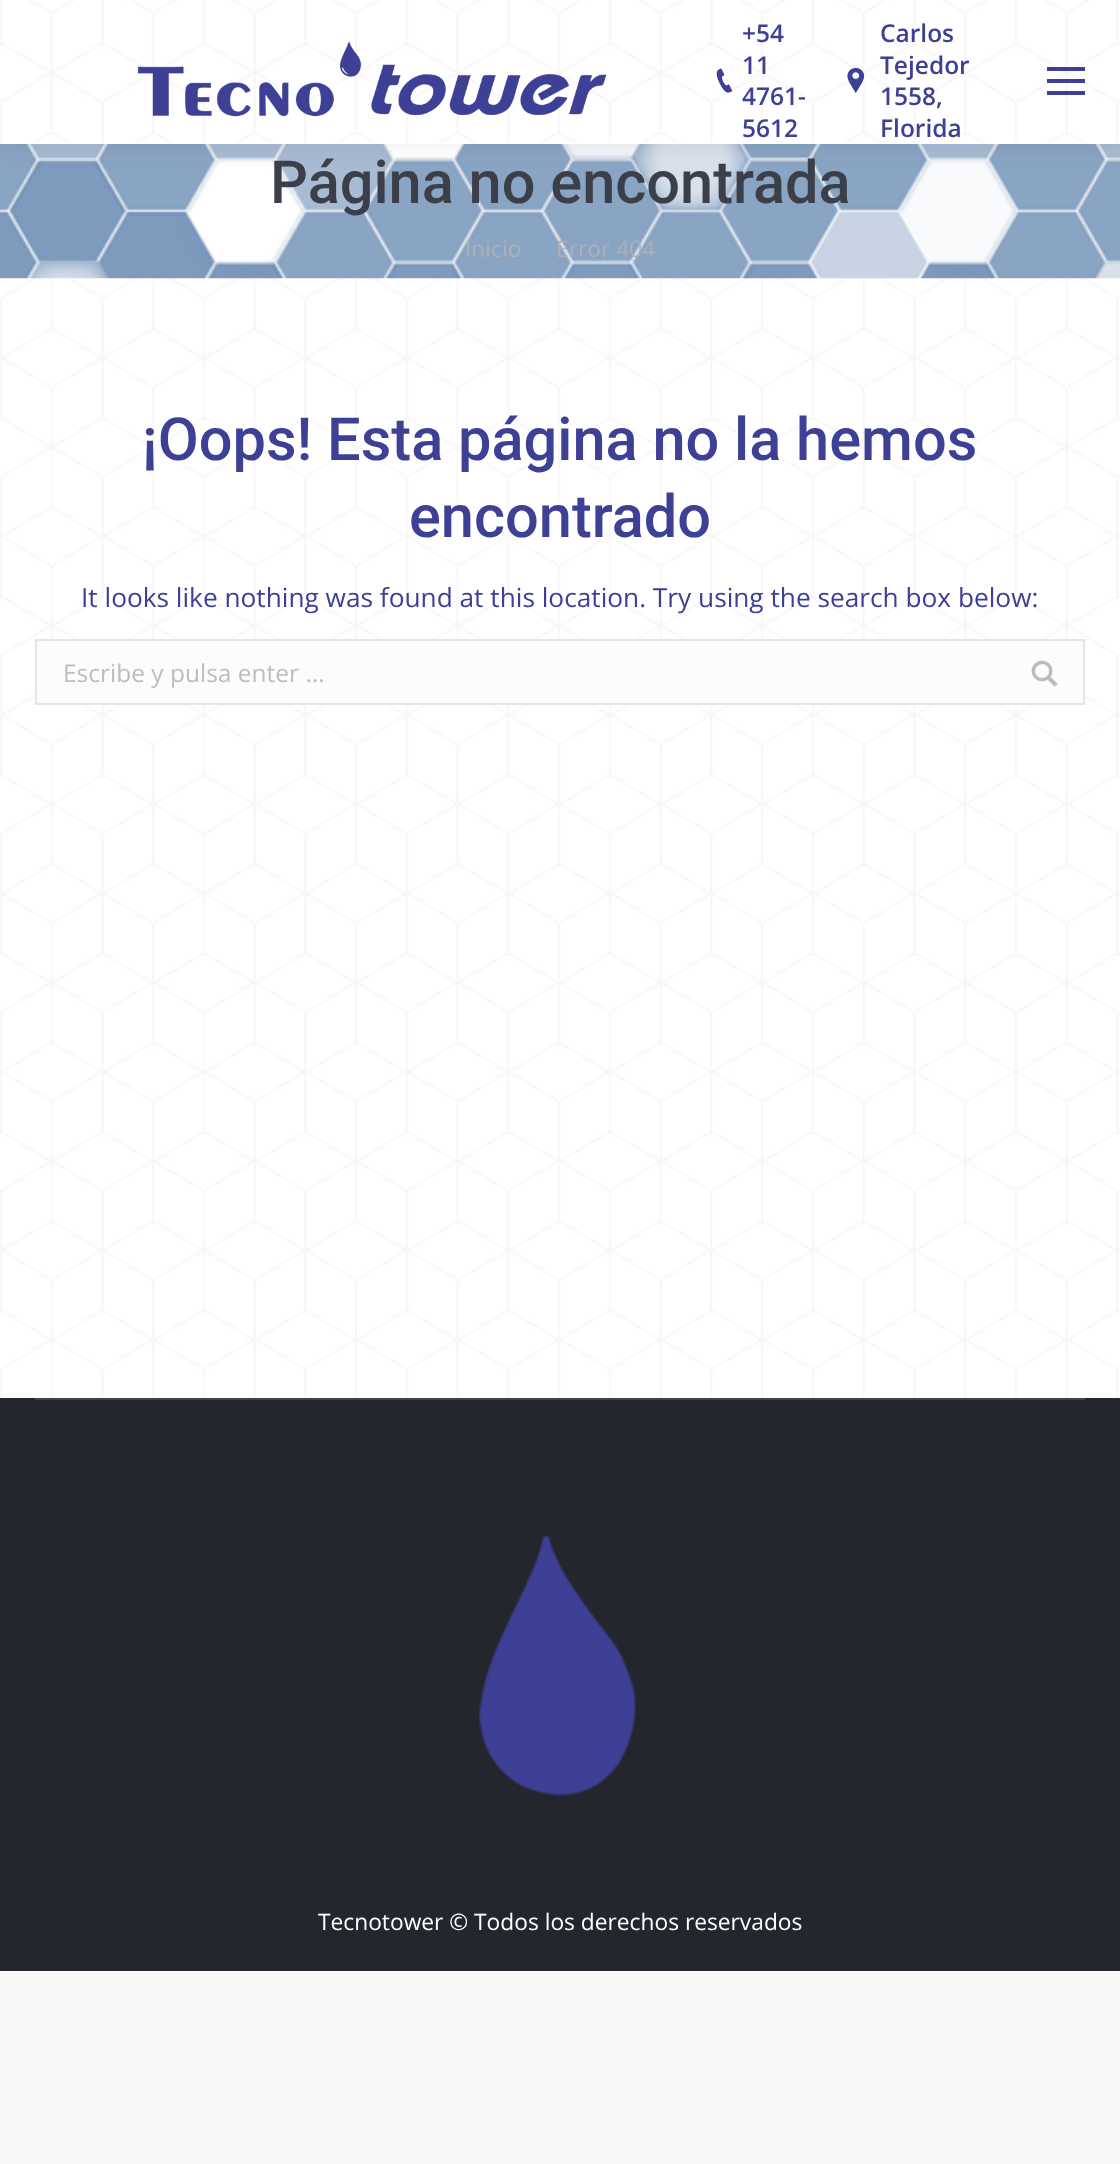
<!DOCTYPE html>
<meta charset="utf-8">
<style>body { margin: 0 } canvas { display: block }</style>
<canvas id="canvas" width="1120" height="2164"></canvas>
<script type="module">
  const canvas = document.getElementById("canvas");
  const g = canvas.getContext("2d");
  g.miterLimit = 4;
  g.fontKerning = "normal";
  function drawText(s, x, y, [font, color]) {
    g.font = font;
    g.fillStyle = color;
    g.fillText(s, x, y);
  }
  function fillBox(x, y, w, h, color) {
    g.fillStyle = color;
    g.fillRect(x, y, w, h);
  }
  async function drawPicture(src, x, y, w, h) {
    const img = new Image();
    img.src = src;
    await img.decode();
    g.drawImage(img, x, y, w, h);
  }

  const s1 = ["600 24.5px Open Sans", "#3E4095"];
  const s2 = ["500 59.5px Roboto", "#3B3F4A"];
  const s3 = ["22.75px Open Sans", "#ADB0B6"];
  const s4 = ["500 59.5px Roboto", "#3E4095"];
  const s5 = ["26.25px Open Sans", "#3E4095"];
  const s6 = ["24.5px Open Sans", "#BABDC1"];
  const s7 = ["22.75px Open Sans", "#FFFFFF"];

  fillBox(0, 0, 1120, 2164, "#F8F8F9");
  fillBox(0, 278, 1120, 1120, "#FFFFFF");
  await drawPicture("pic1.png", 0, 278, 1120, 1120);
  await drawPicture("pic6.png", 0, 144, 1120, 135);
  g.fillStyle = "rgba(0, 0, 0, 0.07)";
  g.filter = "blur(13px)";
  g.beginPath();
  g.rect(-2, -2, 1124, 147);
  g.fill();
  g.filter = "none";
  fillBox(0, 0, 1120, 144, "#FFFFFF");
  await drawPicture("pic2.png", 0, 0, 1120, 143);
  await drawPicture("pic3.png", 137, 41, 470, 76);
  await drawPicture("pic4.png", 716, 68, 17, 25);
  drawText("+54", 742, 42, s1);
  drawText("11", 742, 74, s1);
  drawText("4761-", 742, 105, s1);
  drawText("5612", 742, 137, s1);
  await drawPicture("pic5.png", 847, 67, 18, 26);
  drawText("Carlos", 880, 42, s1);
  drawText("Tejedor", 880, 74, s1);
  drawText("1558,", 880, 105, s1);
  drawText("Florida", 880, 137, s1);
  fillBox(1047, 79, 38, 4, "#3E4095");
  fillBox(1047, 67, 38, 4, "#3E4095");
  fillBox(1047, 91, 38, 4, "#3E4095");
  drawText("Página no encontrada", 270, 203, s2);
  drawText("Inicio", 465, 257, s3);
  drawText("Error 404", 556, 257, s3);
  drawText("¡Oops! Esta página no la hemos", 142, 460, s4);
  drawText("encontrado", 409, 537, s4);
  drawText("It looks like nothing was found at this location. Try using the search box below:", 81, 607, s5);
  g.fillStyle = "#FCFCFC";
  g.beginPath();
  g.rect(36, 640, 1048, 64);
  g.fill();
  g.strokeStyle = "#E4E5E7";
  g.lineWidth = 2;
  g.stroke();
  drawText("Escribe y pulsa enter …", 63, 682, s6);
  await drawPicture("pic7.png", 1031, 660, 27, 27);
  fillBox(0, 1398, 1120, 573, "#23262D");
  fillBox(35, 1398, 1050, 2, "#404248");
  await drawPicture("pic8.png", 479, 1536, 157, 260);
  drawText("Tecnotower © Todos los derechos reservados", 318, 1930, s7);
</script>
